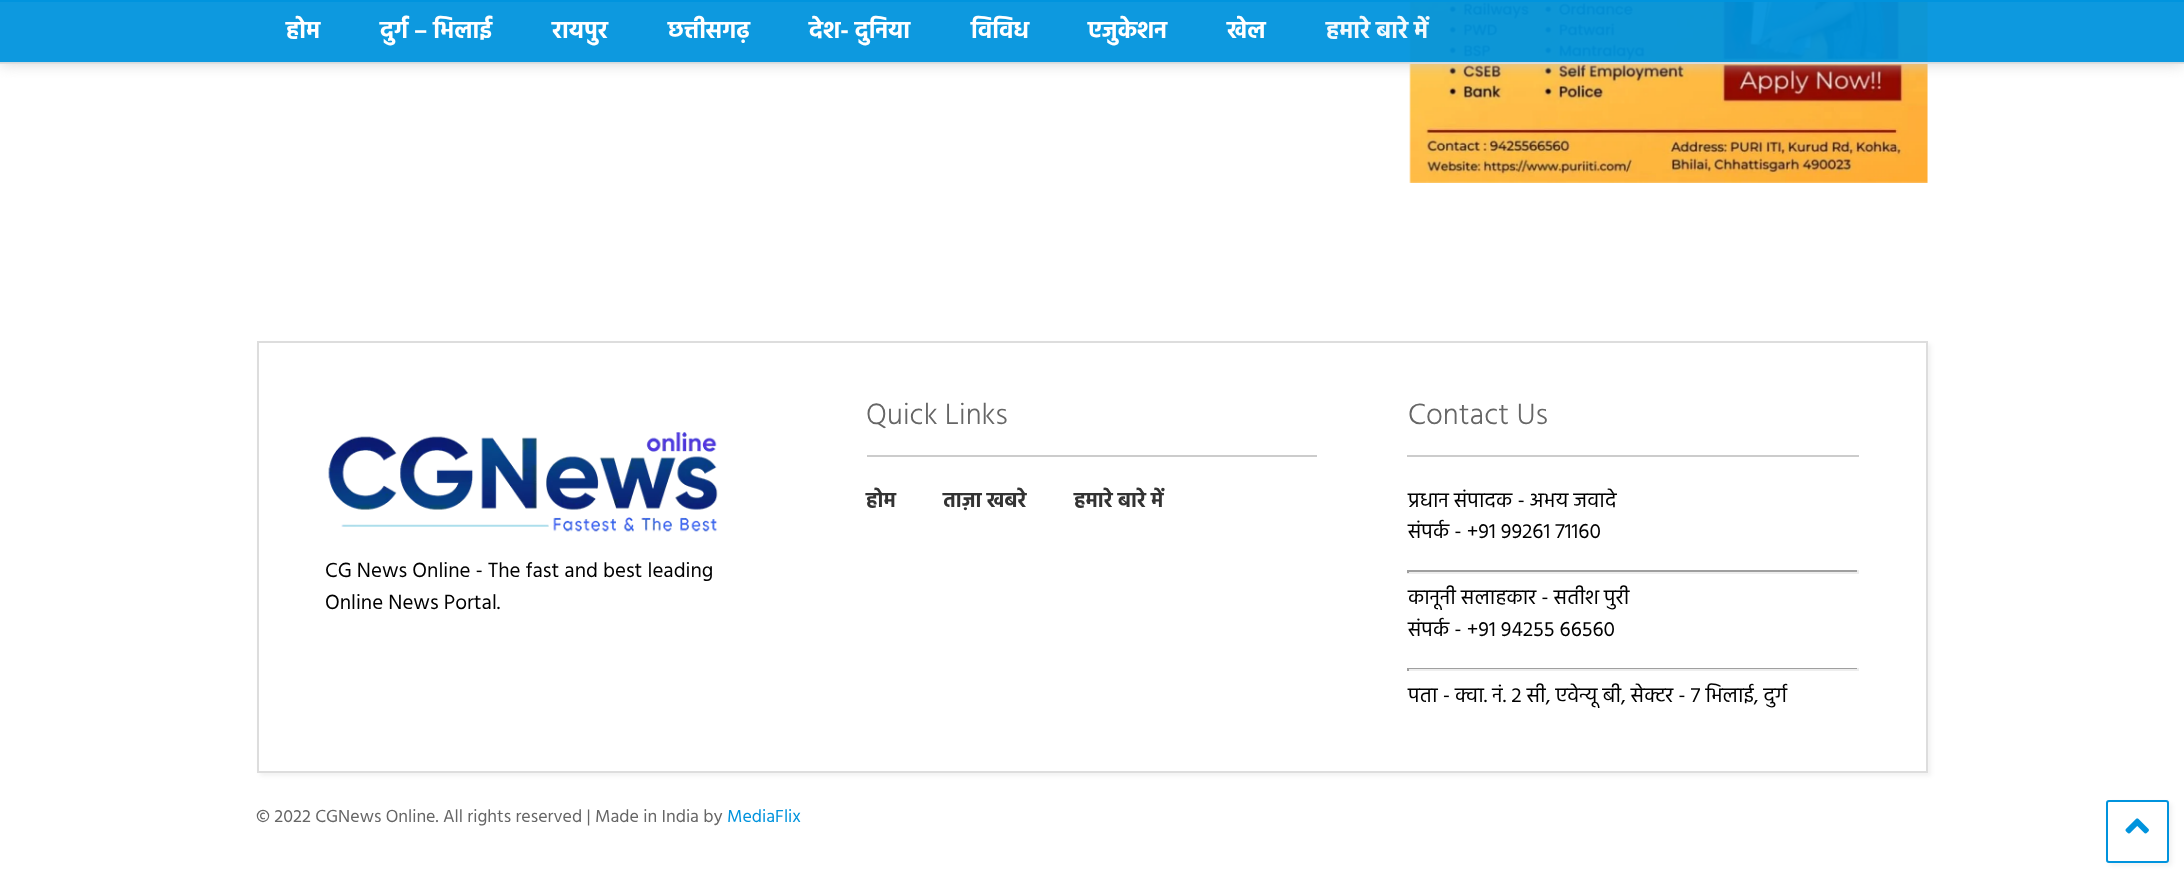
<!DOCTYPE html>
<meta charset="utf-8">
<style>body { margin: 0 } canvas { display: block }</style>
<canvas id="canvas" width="2184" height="877"></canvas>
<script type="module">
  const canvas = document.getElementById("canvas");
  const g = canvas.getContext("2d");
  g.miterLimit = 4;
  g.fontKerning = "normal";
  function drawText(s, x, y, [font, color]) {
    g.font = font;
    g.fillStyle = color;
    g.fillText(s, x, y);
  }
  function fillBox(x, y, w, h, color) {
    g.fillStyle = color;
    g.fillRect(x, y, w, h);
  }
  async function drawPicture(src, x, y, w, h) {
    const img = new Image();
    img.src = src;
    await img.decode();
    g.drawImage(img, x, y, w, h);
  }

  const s1 = ["bold 24px Hind", "#FFFFFF"];
  const s2 = ["bold 24px Hind", "#F3FAFD"];
  const s3 = ["21px Hind", "#000000"];
  const s4 = ["300 30px Hind", "#666666"];
  const s5 = ["bold 21px Hind", "#333333"];
  const s6 = ["18px Hind", "#666666"];
  const s7 = ["18px Hind", "#0093DD"];

  fillBox(0, 0, 2184, 877, "#FFFFFF");
  await drawPicture("pic1.png", 1409, 0, 519, 183);
  g.save();
  g.beginPath();
  g.rect(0, 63, 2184, 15);
  g.clip();
  g.fillStyle = "rgba(204, 204, 204, 0.95)";
  g.filter = "blur(7.5px)";
  g.beginPath();
  g.rect(0, 0, 2184, 63);
  g.fill();
  g.filter = "none";
  g.restore();
  fillBox(0, 0, 2184, 63, "rgba(0, 147, 221, 0.95)");
  fillBox(0, 0, 2184, 2, "rgba(0, 147, 221, 0.95)");
  fillBox(0, 62, 2184, 2, "rgba(221, 221, 221, 0.95)");
  drawText("होम", 286, 38, s1);
  drawText("दुर्ग – भिलाई", 380, 38, s1);
  drawText("रायपुर", 552, 38, s1);
  drawText("छत्तीसगढ़", 668, 38, s1);
  drawText("देश- दुनिया", 809, 38, s1);
  drawText("विविध", 971, 38, s1);
  drawText("एजुकेशन", 1088, 38, s1);
  drawText("खेल", 1227, 38, s1);
  drawText("हमारे बारे में", 1326, 38, s2);
  g.fillStyle = "rgba(0, 0, 0, 0.05)";
  g.filter = "blur(2px)";
  g.beginPath();
  g.rect(260, 344, 1671, 432);
  g.fill();
  g.filter = "none";
  g.fillStyle = "#FFFFFF";
  g.beginPath();
  g.rect(258, 342, 1669, 430);
  g.fill();
  g.strokeStyle = "#DDDDDD";
  g.lineWidth = 2;
  g.stroke();
  await drawPicture("pic2.png", 328, 432, 390, 100);
  drawText("CG News Online - The fast and best leading", 325, 577, s3);
  drawText("Online News Portal.", 325, 609, s3);
  fillBox(867, 455, 450, 2, "#CCCCCC");
  drawText("Quick Links", 866, 424, s4);
  drawText("होम", 866, 507, s5);
  drawText("ताज़ा खबरे", 943, 507, s5);
  drawText("हमारे बारे में", 1074, 507, s5);
  fillBox(1407, 455, 452, 2, "#CCCCCC");
  drawText("Contact Us", 1408, 424, s4);
  drawText("प्रधान संपादक - अभय जवादे", 1408, 507, s3);
  drawText("संपर्क - +91 99261 71160", 1408, 538, s3);
  fillBox(1407, 570, 452, 2, "#9F9F9F");
  fillBox(1857, 570, 2, 3, "#EEEEEE");
  fillBox(1407, 572, 452, 2, "#EEEEEE");
  fillBox(1407, 570, 2, 3, "#9F9F9F");
  drawText("कानूनी सलाहकार - सतीश पुरी", 1408, 604, s3);
  drawText("संपर्क - +91 94255 66560", 1408, 636, s3);
  fillBox(1407, 668, 452, 1, "#9F9F9F");
  fillBox(1857, 668, 2, 3, "#EEEEEE");
  fillBox(1407, 669, 452, 2, "#EEEEEE");
  fillBox(1407, 668, 2, 3, "#9F9F9F");
  drawText("पता - क्वा. नं. 2 सी, एवेन्यू बी, सेक्टर - 7 भिलाई, दुर्ग", 1408, 702, s3);
  drawText("© 2022 CGNews Online. All rights reserved | Made in India by", 256, 822, s6);
  drawText("MediaFlix", 727, 822, s7);
  g.fillStyle = "rgba(0, 0, 0, 0.05)";
  g.filter = "blur(2px)";
  g.beginPath();
  g.roundRect(2109, 803, 63, 63, 3);
  g.fill();
  g.filter = "none";
  g.fillStyle = "#FFFFFF";
  g.beginPath();
  g.roundRect(2107, 801, 61, 61, 2);
  g.fill();
  g.strokeStyle = "#0093DD";
  g.stroke();
  await drawPicture("pic3.png", 2125, 818, 24, 16);
</script>
